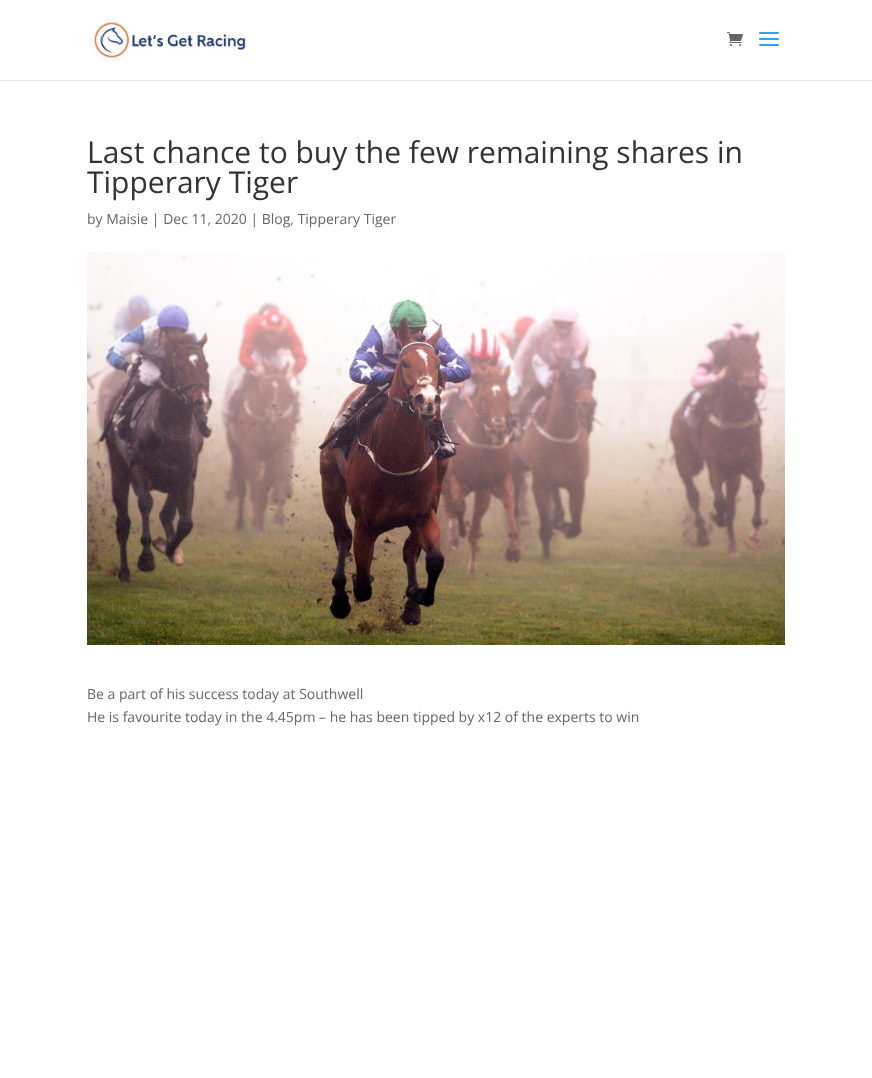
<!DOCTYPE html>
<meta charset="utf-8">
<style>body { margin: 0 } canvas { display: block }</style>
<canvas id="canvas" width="872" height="1078"></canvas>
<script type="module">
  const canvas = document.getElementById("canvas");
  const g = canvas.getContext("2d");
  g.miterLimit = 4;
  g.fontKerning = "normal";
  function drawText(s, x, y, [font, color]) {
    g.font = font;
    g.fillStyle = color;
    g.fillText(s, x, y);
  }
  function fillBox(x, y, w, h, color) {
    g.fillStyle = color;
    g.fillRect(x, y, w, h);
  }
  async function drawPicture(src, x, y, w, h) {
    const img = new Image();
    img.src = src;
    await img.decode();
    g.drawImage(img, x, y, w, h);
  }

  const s1 = ["30px Open Sans", "#333333"];
  const s2 = ["14px Open Sans", "#666666"];

  fillBox(0, 0, 872, 1078, "#FFFFFF");
  fillBox(0, 80, 872, 1, "#E6E6E6");
  await drawPicture("pic1.png", 91, 18, 158, 43);
  await drawPicture("pic2.png", 727, 32, 16, 14);
  await drawPicture("pic3.png", 759, 32, 20, 14);
  drawText("Last chance to buy the few remaining shares in", 87, 163, s1);
  drawText("Tipperary Tiger", 87, 193, s1);
  drawText("by Maisie | Dec 11, 2020 | Blog, Tipperary Tiger", 87, 224, s2);
  await drawPicture("pic4.png", 87, 252, 698, 393);
  drawText("Be a part of his success today at Southwell", 87, 699, s2);
  drawText("He is favourite today in the 4.45pm – he has been tipped by x12 of the experts to win", 87, 722, s2);
</script>
